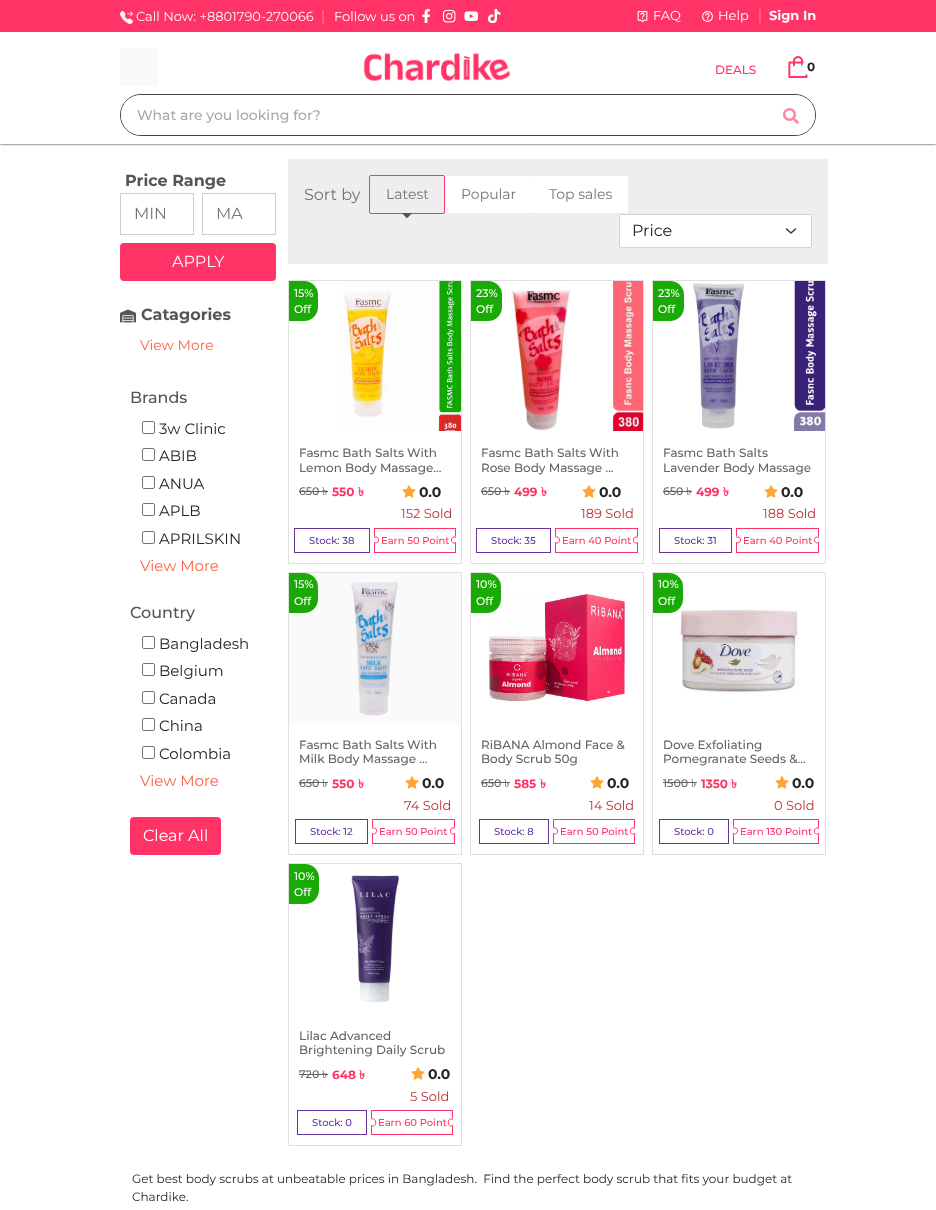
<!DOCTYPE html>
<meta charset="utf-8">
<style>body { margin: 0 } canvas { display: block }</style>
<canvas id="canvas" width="936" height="1210"></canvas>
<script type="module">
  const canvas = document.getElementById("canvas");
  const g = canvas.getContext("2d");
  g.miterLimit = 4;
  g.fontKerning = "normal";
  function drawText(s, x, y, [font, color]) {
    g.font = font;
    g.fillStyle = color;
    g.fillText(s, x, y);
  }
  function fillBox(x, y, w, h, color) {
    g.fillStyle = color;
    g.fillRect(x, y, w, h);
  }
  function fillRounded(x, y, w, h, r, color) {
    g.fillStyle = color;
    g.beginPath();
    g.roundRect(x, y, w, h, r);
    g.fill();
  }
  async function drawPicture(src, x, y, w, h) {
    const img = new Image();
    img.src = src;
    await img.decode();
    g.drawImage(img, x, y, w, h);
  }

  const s1 = ["13px Montserrat", "#FFF6F8"];
  const s2 = ["13px Montserrat", "#FFFFFF"];
  const s3 = ["bold 13px Montserrat", "#FFFFFF"];
  const s4 = ["500 12px Montserrat", "#FF3366"];
  const s5 = ["bold 12px Montserrat", "#222222"];
  const s6 = ["500 14px Montserrat", "#AAAAAA"];
  const s7 = ["bold 16px Montserrat", "#555555"];
  const s8 = ["16px Montserrat", "#757575"];
  const s9 = ["16px Montserrat", "#FFFFFF"];
  const s10 = ["14px Montserrat", "#FF6347"];
  const s11 = ["500 16px Montserrat", "#555555"];
  const s12 = ["15px Montserrat", "#212529"];
  const s13 = ["15px Montserrat", "#FF6347"];
  const s14 = ["16px Montserrat", "#6C757D"];
  const s15 = ["14px Montserrat", "#6C757D"];
  const s16 = ["16px Montserrat", "#212529"];
  const s17 = ["500 11px Montserrat", "#FFFFFF"];
  const s18 = ["500 12px Montserrat", "#636363"];
  const s19 = ["500 11px Montserrat", "#636363"];
  const s20 = ["11px Lohit Bengali", "#636363"];
  const s21 = ["bold 12px Montserrat", "#FF3366"];
  const s22 = ["bold 12px Lohit Bengali", "#FF3366"];
  const s23 = ["bold 14px Montserrat", "#212529"];
  const s24 = ["13px Montserrat", "#BC3232"];
  const s25 = ["500 10px Montserrat", "#663399"];
  const s26 = ["500 10px Montserrat", "#FF3366"];
  const s27 = ["12px Montserrat", "#212529"];

  fillBox(0, 0, 936, 1210, "#FFFFFF");
  g.save();
  g.beginPath();
  g.rect(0, 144, 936, 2);
  g.clip();
  g.fillStyle = "#0B0613";
  g.filter = "blur(1px)";
  g.beginPath();
  g.rect(0, 0, 936, 144);
  g.fill();
  g.filter = "none";
  g.restore();
  fillBox(0, 0, 936, 32, "#FF3366");
  await drawPicture("pic1.png", 120, 11, 13, 13);
  drawText("Call Now: +8801790-270066", 136, 21, s1);
  fillBox(322, 10, 2, 14, "#FF6088");
  drawText("Follow us on", 334, 21, s2);
  await drawPicture("pic2.png", 422, 9, 9, 14);
  await drawPicture("pic3.png", 442, 9, 14, 14);
  await drawPicture("pic4.png", 464, 11, 14, 10);
  await drawPicture("pic5.png", 487, 9, 14, 14);
  await drawPicture("pic6.png", 637, 11, 11, 12);
  drawText("FAQ", 653, 20, s2);
  await drawPicture("pic7.png", 702, 11, 11, 11);
  drawText("Help", 718, 20, s2);
  fillBox(759, 9, 2, 14, "#FF6088");
  drawText("Sign In", 769, 20, s3);
  fillRounded(120, 48, 38, 38, 4, "#F8F9FA");
  await drawPicture("pic8.png", 363, 53, 148, 28);
  drawText("DEALS", 715, 74, s4);
  await drawPicture("pic9.png", 788, 56, 20, 22);
  g.fillStyle = "#FFFFFF";
  g.beginPath();
  g.arc(811, 67, 9, 0, Math.PI * 2);
  g.fill();
  drawText("0", 807, 71, s5);
  g.beginPath();
  g.roundRect(120.5, 94.5, 695, 41, 20.5);
  g.strokeStyle = "#424242";
  g.stroke();
  g.fillStyle = "#FFFFFF";
  g.beginPath();
  g.roundRect(121, 95, 646, 40, [20, 0, 0, 20]);
  g.fill();
  drawText("What are you looking for?", 137, 120, s6);
  g.fillStyle = "#FFFFFF";
  g.beginPath();
  g.roundRect(767, 95, 48, 40, [0, 20, 20, 0]);
  g.fill();
  await drawPicture("pic10.png", 783, 108, 16, 16);
  drawText("Price Range", 125, 186, s7);
  g.strokeStyle = "#CCCCCC";
  g.strokeRect(120.5, 193.5, 73, 41);
  g.save();
  g.beginPath();
  g.rect(134, 204, 31, 19);
  g.clip();
  drawText("MIN", 134, 219, s8);
  g.restore();
  g.strokeRect(202.5, 193.5, 73, 41);
  drawText("MA", 216, 219, s8);
  fillRounded(120, 243, 156, 38, 4, "#FF3366");
  drawText("APPLY", 172, 267, s9);
  await drawPicture("pic11.png", 120, 309, 16, 14);
  drawText("Catagories", 141, 320, s7);
  drawText("View More", 140, 350, s10);
  drawText("Brands", 130, 403, s11);
  g.beginPath();
  g.roundRect(142.5, 421.5, 12, 12, 1.5);
  g.strokeStyle = "#767676";
  g.stroke();
  drawText("3w Clinic", 159, 434, s12);
  g.beginPath();
  g.roundRect(142.5, 448.5, 12, 12, 1.5);
  g.stroke();
  drawText("ABIB", 159, 461, s12);
  g.beginPath();
  g.roundRect(142.5, 476.5, 12, 12, 1.5);
  g.stroke();
  drawText("ANUA", 159, 489, s12);
  g.beginPath();
  g.roundRect(142.5, 503.5, 12, 12, 1.5);
  g.stroke();
  drawText("APLB", 159, 516, s12);
  g.beginPath();
  g.roundRect(142.5, 531.5, 12, 12, 1.5);
  g.stroke();
  drawText("APRILSKIN", 159, 544, s12);
  drawText("View More", 140, 571, s13);
  drawText("Country", 130, 618, s11);
  g.beginPath();
  g.roundRect(142.5, 636.5, 12, 12, 1.5);
  g.stroke();
  drawText("Bangladesh", 159, 649, s12);
  g.beginPath();
  g.roundRect(142.5, 663.5, 12, 12, 1.5);
  g.stroke();
  drawText("Belgium", 159, 676, s12);
  g.beginPath();
  g.roundRect(142.5, 691.5, 12, 12, 1.5);
  g.stroke();
  drawText("Canada", 159, 704, s12);
  g.beginPath();
  g.roundRect(142.5, 718.5, 12, 12, 1.5);
  g.stroke();
  drawText("China", 159, 731, s12);
  g.beginPath();
  g.roundRect(142.5, 746.5, 12, 12, 1.5);
  g.stroke();
  drawText("Colombia", 159, 759, s12);
  drawText("View More", 140, 786, s13);
  fillRounded(130, 817, 91, 38, 4, "#FF3366");
  drawText("Clear All", 143, 841, s9);
  fillBox(288, 159, 540, 105, "#EEEEEE");
  drawText("Sort by", 304, 200, s14);
  g.beginPath();
  g.roundRect(369.5, 175.5, 75, 38, 1.5);
  g.strokeStyle = "#FF3366";
  g.stroke();
  drawText("Latest", 386, 199, s15);
  await drawPicture("pic12.png", 401, 213, 12, 5);
  fillRounded(445, 176, 88, 37, 2, "#FFFFFF");
  drawText("Popular", 461, 199, s15);
  fillRounded(533, 176, 95, 37, 2, "#FFFFFF");
  drawText("Top sales", 549, 199, s15);
  fillRounded(619, 214, 193, 34, 2, "#FFFFFF");
  g.beginPath();
  g.moveTo(786.5, 229);
  g.lineTo(791, 233);
  g.lineTo(795.5, 229);
  g.strokeStyle = "#343A40";
  g.lineWidth = 1.5;
  g.lineCap = "round";
  g.lineJoin = "round";
  g.stroke();
  g.beginPath();
  g.roundRect(619.5, 214.5, 192, 33, 1.5);
  g.strokeStyle = "#CED4DA";
  g.lineWidth = 1;
  g.lineJoin = "miter";
  g.stroke();
  drawText("Price", 632, 236, s16);
  g.strokeStyle = "#DFDFDF";
  g.strokeRect(288.5, 280.5, 173, 283);
  g.fillStyle = "#19AA06";
  g.beginPath();
  g.roundRect(289, 281, 29, 40, [0, 14, 14, 0]);
  g.fill();
  drawText("15%", 294, 297, s17);
  drawText("Off", 294, 313, s17);
  await drawPicture("pic13.png", 343, 281, 118, 150);
  drawText("Fasmc Bath Salts With", 299, 457, s18);
  drawText("Lemon Body Massage...", 299, 472, s18);
  drawText("650", 299, 495, s19);
  fillBox(299, 491, 20, 1, "#636363");
  fillBox(319, 491, 9, 1, "#636363");
  drawText("৳", 322, 495, s20);
  drawText("550", 332, 496, s21);
  drawText("৳", 358, 496, s22);
  await drawPicture("pic14.png", 402, 485, 14, 13);
  drawText("0.0", 419, 497, s23);
  drawText("152 Sold", 401, 518, s24);
  g.strokeStyle = "#663399";
  g.strokeRect(294.5, 528.5, 75, 24);
  drawText("Stock: 38", 309, 544, s25);
  g.strokeStyle = "#FF3366";
  g.strokeRect(374.5, 528.5, 81, 24);
  fillRounded(373, 536, 6, 7, 3, "#FFFFFF");
  g.beginPath();
  g.moveTo(374, 537.5);
  g.bezierCurveTo(375, 537, 375.5, 537, 376.5, 537);
  g.bezierCurveTo(381, 538, 377.5, 545.5, 374, 542);
  g.lineCap = "butt";
  g.stroke();
  g.beginPath();
  g.moveTo(374, 542);
  g.bezierCurveTo(373, 541, 373, 538.5, 374, 537.5);
  g.strokeStyle = "#FFFFFF";
  g.stroke();
  drawText("Earn 50 Point", 381, 544, s26);
  fillRounded(451, 536, 6, 7, 3, "#FFFFFF");
  g.beginPath();
  g.moveTo(456, 542);
  g.bezierCurveTo(455, 543, 454.5, 543, 453.5, 543);
  g.bezierCurveTo(449, 542, 452.5, 534.5, 456, 537.5);
  g.strokeStyle = "#FF3366";
  g.stroke();
  g.strokeStyle = "#DFDFDF";
  g.strokeRect(470.5, 280.5, 173, 283);
  g.fillStyle = "#19AA06";
  g.beginPath();
  g.roundRect(471, 281, 31, 40, [0, 14, 14, 0]);
  g.fill();
  drawText("23%", 476, 297, s17);
  drawText("Off", 476, 313, s17);
  await drawPicture("pic15.png", 511, 281, 132, 150);
  drawText("Fasmc Bath Salts With", 481, 457, s18);
  drawText("Rose Body Massage ...", 481, 472, s18);
  drawText("650", 481, 495, s19);
  fillBox(481, 491, 20, 1, "#636363");
  fillBox(501, 491, 9, 1, "#636363");
  drawText("৳", 504, 495, s20);
  drawText("499", 514, 496, s21);
  drawText("৳", 541, 496, s22);
  await drawPicture("pic14.png", 582, 485, 14, 13);
  drawText("0.0", 599, 497, s23);
  drawText("189 Sold", 581, 518, s24);
  g.strokeStyle = "#663399";
  g.strokeRect(476.5, 528.5, 74, 24);
  drawText("Stock: 35", 491, 544, s25);
  g.strokeStyle = "#FF3366";
  g.strokeRect(555.5, 528.5, 82, 24);
  fillRounded(554, 536, 6, 7, 3, "#FFFFFF");
  g.beginPath();
  g.moveTo(555, 537.5);
  g.bezierCurveTo(558.5, 534.5, 562, 542, 557.5, 543);
  g.bezierCurveTo(556.5, 543, 556, 543, 555, 542);
  g.stroke();
  g.beginPath();
  g.moveTo(555, 542);
  g.bezierCurveTo(554, 541, 554, 538.5, 555, 537.5);
  g.strokeStyle = "#FFFFFF";
  g.stroke();
  drawText("Earn 40 Point", 562, 544, s26);
  fillRounded(633, 536, 6, 7, 3, "#FFFFFF");
  g.beginPath();
  g.moveTo(638, 542);
  g.bezierCurveTo(637, 543, 636.5, 543, 635.5, 543);
  g.bezierCurveTo(631, 542, 634.5, 534.5, 638, 537.5);
  g.strokeStyle = "#FF3366";
  g.stroke();
  g.strokeStyle = "#DFDFDF";
  g.strokeRect(652.5, 280.5, 173, 283);
  g.fillStyle = "#19AA06";
  g.beginPath();
  g.roundRect(653, 281, 31, 40, [0, 14, 14, 0]);
  g.fill();
  drawText("23%", 658, 297, s17);
  drawText("Off", 658, 313, s17);
  await drawPicture("pic16.png", 693, 281, 132, 150);
  drawText("Fasmc Bath Salts", 663, 457, s18);
  drawText("Lavender Body Massage", 663, 472, s18);
  drawText("650", 663, 495, s19);
  fillBox(663, 491, 20, 1, "#636363");
  fillBox(683, 491, 9, 1, "#636363");
  drawText("৳", 686, 495, s20);
  drawText("499", 696, 496, s21);
  drawText("৳", 723, 496, s22);
  await drawPicture("pic14.png", 764, 485, 14, 13);
  drawText("0.0", 781, 497, s23);
  drawText("188 Sold", 763, 518, s24);
  g.strokeStyle = "#663399";
  g.strokeRect(659.5, 528.5, 72, 24);
  drawText("Stock: 31", 674, 544, s25);
  g.strokeStyle = "#FF3366";
  g.strokeRect(736.5, 528.5, 82, 24);
  fillRounded(735, 536, 6, 7, 3, "#FFFFFF");
  g.beginPath();
  g.moveTo(736, 537.5);
  g.bezierCurveTo(737, 537, 737.5, 537, 738.5, 537);
  g.bezierCurveTo(743, 538, 739.5, 545.5, 736, 542);
  g.stroke();
  g.beginPath();
  g.moveTo(736, 542);
  g.bezierCurveTo(735, 541, 735, 538.5, 736, 537.5);
  g.strokeStyle = "#FFFFFF";
  g.stroke();
  drawText("Earn 40 Point", 743, 544, s26);
  fillRounded(814, 536, 6, 7, 3, "#FFFFFF");
  g.beginPath();
  g.moveTo(819, 542);
  g.bezierCurveTo(815.5, 545.5, 812, 538, 816.5, 537);
  g.bezierCurveTo(817.5, 537, 818, 537, 819, 537.5);
  g.strokeStyle = "#FF3366";
  g.stroke();
  g.strokeStyle = "#DFDFDF";
  g.strokeRect(288.5, 572.5, 173, 282);
  await drawPicture("pic17.png", 289, 573, 172, 150);
  g.fillStyle = "#19AA06";
  g.beginPath();
  g.roundRect(289, 573, 29, 40, [0, 14, 14, 0]);
  g.fill();
  drawText("15%", 294, 588, s17);
  drawText("Off", 294, 605, s17);
  drawText("Fasmc Bath Salts With", 299, 749, s18);
  drawText("Milk Body Massage ...", 299, 763, s18);
  drawText("650", 299, 787, s19);
  fillBox(299, 782, 20, 1, "#636363");
  drawText("৳", 322, 787, s20);
  fillBox(319, 782, 9, 1, "#636363");
  drawText("550", 332, 788, s21);
  drawText("৳", 358, 788, s22);
  await drawPicture("pic14.png", 405, 776, 14, 13);
  drawText("0.0", 422, 788, s23);
  drawText("74 Sold", 404, 810, s24);
  g.strokeStyle = "#663399";
  g.strokeRect(295.5, 819.5, 72, 24);
  drawText("Stock: 12", 310, 835, s25);
  g.strokeStyle = "#FF3366";
  g.strokeRect(372.5, 819.5, 82, 24);
  fillRounded(371, 827, 6, 7, 3, "#FFFFFF");
  g.beginPath();
  g.moveTo(372, 828.5);
  g.bezierCurveTo(373, 828, 373.5, 828, 374.5, 828);
  g.bezierCurveTo(379, 829, 375.5, 836.5, 372, 833);
  g.stroke();
  g.beginPath();
  g.moveTo(372, 833);
  g.bezierCurveTo(371, 832, 371, 829.5, 372, 828.5);
  g.strokeStyle = "#FFFFFF";
  g.stroke();
  drawText("Earn 50 Point", 379, 835, s26);
  fillRounded(450, 827, 6, 7, 3, "#FFFFFF");
  g.beginPath();
  g.moveTo(455, 833);
  g.bezierCurveTo(454, 834, 453.5, 834, 452.5, 834);
  g.bezierCurveTo(448, 833, 451.5, 825.5, 455, 828.5);
  g.strokeStyle = "#FF3366";
  g.stroke();
  g.strokeStyle = "#DFDFDF";
  g.strokeRect(470.5, 572.5, 173, 282);
  await drawPicture("pic18.png", 488, 593, 137, 109);
  g.fillStyle = "#19AA06";
  g.beginPath();
  g.roundRect(471, 573, 30, 40, [0, 14, 14, 0]);
  g.fill();
  drawText("10%", 476, 588, s17);
  drawText("Off", 476, 605, s17);
  drawText("RiBANA Almond Face &", 481, 749, s18);
  drawText("Body Scrub 50g", 481, 763, s18);
  drawText("650", 481, 787, s19);
  fillBox(481, 782, 20, 1, "#636363");
  drawText("৳", 504, 787, s20);
  fillBox(501, 782, 9, 1, "#636363");
  drawText("585", 514, 788, s21);
  drawText("৳", 540, 788, s22);
  await drawPicture("pic14.png", 590, 776, 14, 13);
  drawText("0.0", 607, 788, s23);
  drawText("14 Sold", 589, 810, s24);
  g.strokeStyle = "#663399";
  g.strokeRect(479.5, 819.5, 69, 24);
  drawText("Stock: 8", 494, 835, s25);
  g.strokeStyle = "#FF3366";
  g.strokeRect(553.5, 819.5, 81, 24);
  fillRounded(552, 827, 6, 7, 3, "#FFFFFF");
  g.beginPath();
  g.moveTo(553, 828.5);
  g.bezierCurveTo(556.5, 825.5, 560, 833, 555.5, 834);
  g.bezierCurveTo(554.5, 834, 554, 834, 553, 833);
  g.stroke();
  g.beginPath();
  g.moveTo(553, 833);
  g.bezierCurveTo(552, 832, 552, 829.5, 553, 828.5);
  g.strokeStyle = "#FFFFFF";
  g.stroke();
  drawText("Earn 50 Point", 560, 835, s26);
  fillRounded(630, 827, 6, 7, 3, "#FFFFFF");
  g.beginPath();
  g.moveTo(635, 833);
  g.bezierCurveTo(634, 834, 633.5, 834, 632.5, 834);
  g.bezierCurveTo(628, 833, 631.5, 825.5, 635, 828.5);
  g.strokeStyle = "#FF3366";
  g.stroke();
  g.strokeStyle = "#DFDFDF";
  g.strokeRect(652.5, 572.5, 173, 282);
  await drawPicture("pic19.png", 680, 609, 118, 84);
  g.fillStyle = "#19AA06";
  g.beginPath();
  g.roundRect(653, 573, 30, 40, [0, 14, 14, 0]);
  g.fill();
  drawText("10%", 658, 588, s17);
  drawText("Off", 658, 605, s17);
  drawText("Dove Exfoliating", 663, 749, s18);
  drawText("Pomegranate Seeds &…", 663, 763, s18);
  drawText("1500", 663, 787, s19);
  fillBox(663, 782, 25, 1, "#636363");
  drawText("৳", 691, 787, s20);
  fillBox(688, 782, 9, 1, "#636363");
  drawText("1350", 701, 788, s21);
  drawText("৳", 731, 788, s22);
  await drawPicture("pic14.png", 775, 776, 14, 13);
  drawText("0.0", 792, 788, s23);
  drawText("0 Sold", 774, 810, s24);
  g.strokeStyle = "#663399";
  g.strokeRect(659.5, 819.5, 69, 24);
  drawText("Stock: 0", 674, 835, s25);
  g.strokeStyle = "#FF3366";
  g.strokeRect(733.5, 819.5, 85, 24);
  fillRounded(732, 827, 6, 7, 3, "#FFFFFF");
  g.beginPath();
  g.moveTo(733, 828.5);
  g.bezierCurveTo(734, 828, 734.5, 828, 735.5, 828);
  g.bezierCurveTo(740, 829, 736.5, 836.5, 733, 833);
  g.stroke();
  g.beginPath();
  g.moveTo(733, 833);
  g.bezierCurveTo(732, 832, 732, 829.5, 733, 828.5);
  g.strokeStyle = "#FFFFFF";
  g.stroke();
  drawText("Earn 130 Point", 740, 835, s26);
  fillRounded(814, 827, 6, 7, 3, "#FFFFFF");
  g.beginPath();
  g.moveTo(819, 833);
  g.bezierCurveTo(818, 834, 817.5, 834, 816.5, 834);
  g.bezierCurveTo(812, 833, 815.5, 825.5, 819, 828.5);
  g.strokeStyle = "#FF3366";
  g.stroke();
  g.strokeStyle = "#DFDFDF";
  g.strokeRect(288.5, 863.5, 173, 282);
  g.fillStyle = "#19AA06";
  g.beginPath();
  g.roundRect(289, 864, 30, 40, [0, 14, 14, 0]);
  g.fill();
  drawText("10%", 294, 880, s17);
  drawText("Off", 294, 896, s17);
  await drawPicture("pic20.png", 351, 875, 48, 127);
  drawText("Lilac Advanced", 299, 1040, s18);
  drawText("Brightening Daily Scrub", 299, 1054, s18);
  drawText("720", 299, 1078, s19);
  fillBox(299, 1074, 20, 1, "#636363");
  fillBox(319, 1074, 9, 1, "#636363");
  drawText("৳", 322, 1078, s20);
  drawText("648", 332, 1079, s21);
  drawText("৳", 359, 1079, s22);
  await drawPicture("pic14.png", 411, 1067, 14, 13);
  drawText("0.0", 428, 1079, s23);
  drawText("5 Sold", 410, 1101, s24);
  g.strokeStyle = "#663399";
  g.strokeRect(297.5, 1110.5, 69, 24);
  drawText("Stock: 0", 312, 1126, s25);
  g.strokeStyle = "#FF3366";
  g.strokeRect(371.5, 1110.5, 81, 24);
  fillRounded(370, 1118, 6, 8, 3, "#FFFFFF");
  g.beginPath();
  g.moveTo(371, 1119.5);
  g.bezierCurveTo(375, 1116, 378, 1125, 373.5, 1126);
  g.bezierCurveTo(372.5, 1126, 372, 1126, 371, 1125);
  g.stroke();
  g.beginPath();
  g.moveTo(371, 1125);
  g.bezierCurveTo(370, 1124, 370, 1121, 371, 1119.5);
  g.strokeStyle = "#FFFFFF";
  g.stroke();
  drawText("Earn 60 Point", 378, 1126, s26);
  fillRounded(448, 1118, 6, 8, 3, "#FFFFFF");
  g.beginPath();
  g.moveTo(453, 1125);
  g.bezierCurveTo(449, 1129, 446, 1120, 450.5, 1119);
  g.bezierCurveTo(451.5, 1119, 452, 1119, 453, 1119.5);
  g.strokeStyle = "#FF3366";
  g.stroke();
  drawText("Get best body scrubs at unbeatable prices in Bangladesh.  Find the perfect body scrub that fits your budget at", 132, 1183, s27);
  drawText("Chardike.", 132, 1201, s27);
</script>
